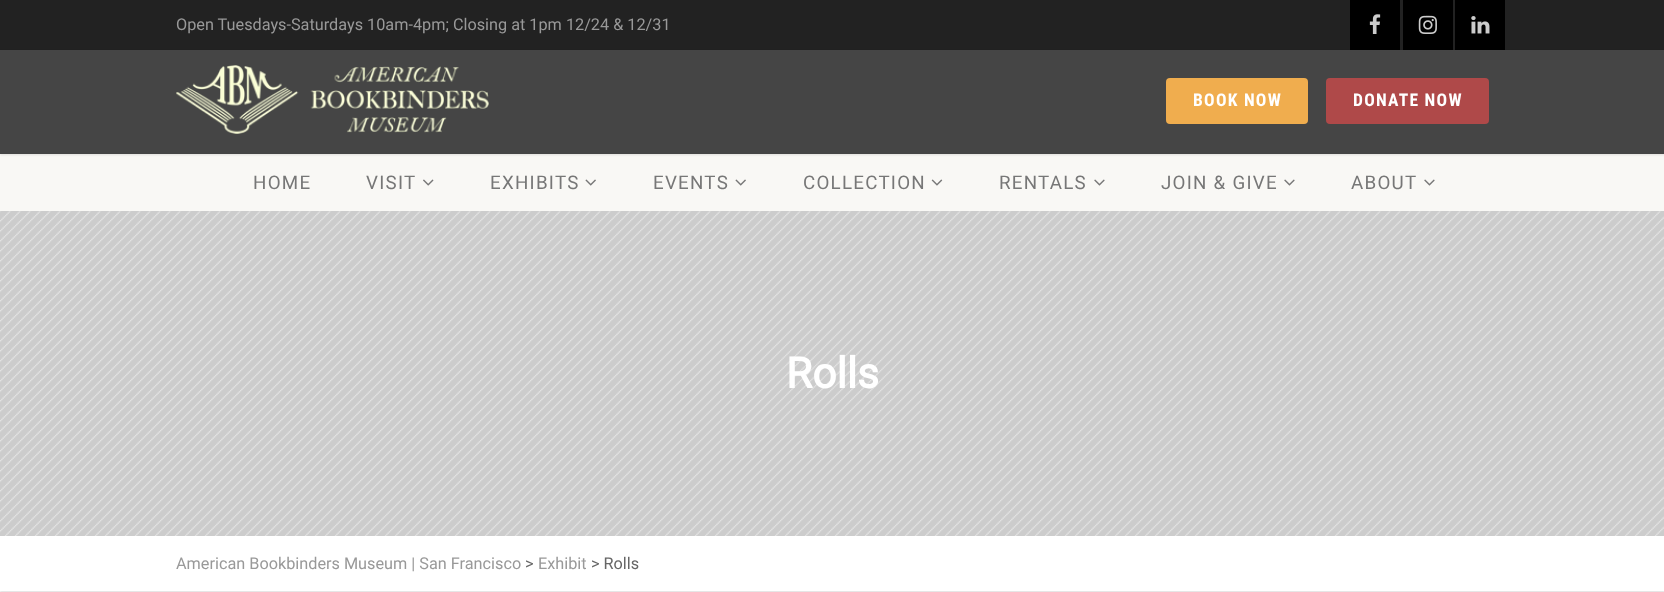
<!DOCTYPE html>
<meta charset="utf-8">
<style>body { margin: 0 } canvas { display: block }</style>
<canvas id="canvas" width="1664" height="592"></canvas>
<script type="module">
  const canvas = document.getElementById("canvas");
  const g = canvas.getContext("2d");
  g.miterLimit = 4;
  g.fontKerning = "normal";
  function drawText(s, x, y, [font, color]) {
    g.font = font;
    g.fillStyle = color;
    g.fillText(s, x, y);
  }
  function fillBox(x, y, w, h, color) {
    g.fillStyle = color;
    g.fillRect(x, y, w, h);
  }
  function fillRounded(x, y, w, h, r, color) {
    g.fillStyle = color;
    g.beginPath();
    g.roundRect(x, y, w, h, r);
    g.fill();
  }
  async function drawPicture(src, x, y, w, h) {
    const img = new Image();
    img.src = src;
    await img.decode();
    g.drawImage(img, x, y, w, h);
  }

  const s1 = ["16.25px Roboto", "#999999"];
  const s2 = ["bold 17.5px Roboto Condensed", "#FFFFFF"];
  const s3 = ["18.75px Roboto", "#777777"];
  const s4 = ["bold 42.5px Roboto", "#FFFFFF"];
  const s5 = ["16.25px Roboto", "#666666"];

  fillBox(0, 0, 1664, 592, "#FFFFFF");
  fillBox(0, 0, 1664, 50, "#222222");
  drawText("Open Tuesdays-Saturdays 10am-4pm; Closing at 1pm 12/24 & 12/31", 176, 30, s1);
  fillBox(1350, 0, 50, 50, "#000000");
  await drawPicture("pic1.png", 1369, 14, 12, 20);
  fillBox(1403, 0, 50, 50, "#000000");
  await drawPicture("pic2.png", 1418, 15, 19, 19);
  fillBox(1455, 0, 50, 50, "#000000");
  await drawPicture("pic3.png", 1471, 16, 19, 18);
  fillBox(0, 154, 1664, 57, "#F9F8F5");
  g.fillStyle = "rgba(0, 0, 0, 0.1)";
  g.filter = "blur(1px)";
  g.beginPath();
  g.rect(0, 51, 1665, 104);
  g.fill();
  g.filter = "none";
  fillBox(0, 50, 1664, 104, "#454545");
  await drawPicture("pic4.png", 176, 65, 313, 69);
  fillRounded(1166, 78, 142, 46, 4, "#F0AD4E");
  g.letterSpacing = "1.25px";
  drawText("BOOK NOW", 1193, 106, s2);
  fillRounded(1326, 78, 163, 46, 4, "#AF4949");
  drawText("DONATE NOW", 1353, 106, s2);
  drawText("HOME", 253, 189, s3);
  drawText("VISIT", 366, 189, s3);
  await drawPicture("pic5.png", 423, 179, 11, 7);
  drawText("EXHIBITS", 490, 189, s3);
  await drawPicture("pic6.png", 585, 179, 11, 7);
  drawText("EVENTS", 653, 189, s3);
  await drawPicture("pic6.png", 735, 179, 11, 7);
  drawText("COLLECTION", 803, 189, s3);
  await drawPicture("pic7.png", 931, 179, 12, 7);
  drawText("RENTALS", 999, 189, s3);
  await drawPicture("pic8.png", 1094, 179, 11, 7);
  drawText("JOIN & GIVE", 1161, 189, s3);
  await drawPicture("pic8.png", 1284, 179, 11, 7);
  drawText("ABOUT", 1351, 189, s3);
  await drawPicture("pic8.png", 1424, 179, 11, 7);
  g.save();
  g.beginPath();
  g.rect(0, 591, 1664, 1);
  g.clip();
  g.fillStyle = "#E6E6E6";
  g.filter = "blur(1px)";
  g.beginPath();
  g.rect(0, 539, 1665, 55);
  g.fill();
  g.filter = "none";
  g.restore();
  fillBox(0, 211, 1664, 325, "#CCCCCC");
  await drawPicture("pic9.png", 0, 211, 1664, 325);
  g.letterSpacing = "0px";
  drawText("Rolls", 786, 388, s4);
  drawText("American Bookbinders Museum | San Francisco", 176, 569, s1);
  drawText(">", 525, 569, s5);
  drawText("Exhibit", 538, 569, s1);
  drawText("> Rolls", 591, 569, s5);
</script>
